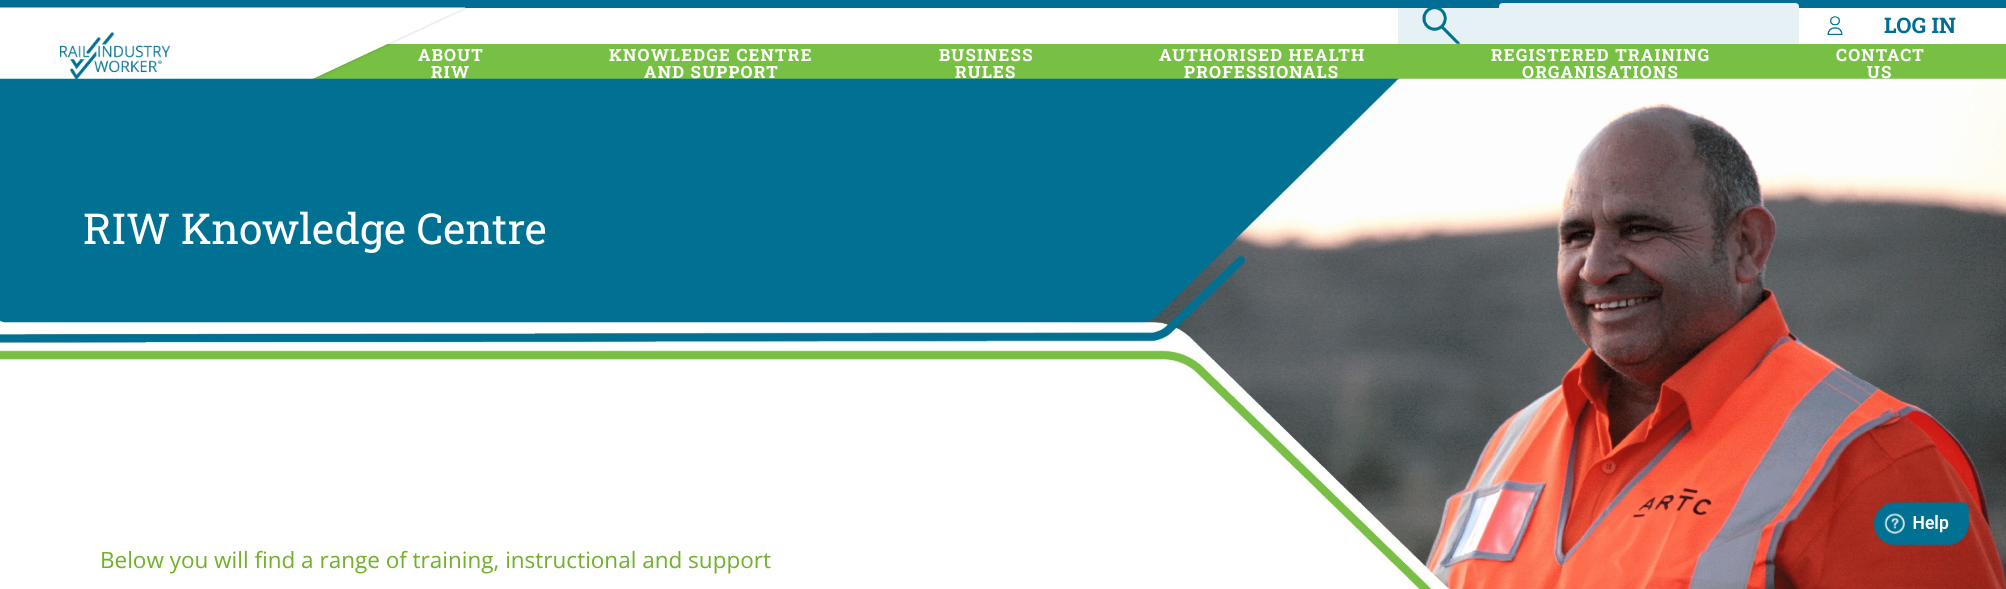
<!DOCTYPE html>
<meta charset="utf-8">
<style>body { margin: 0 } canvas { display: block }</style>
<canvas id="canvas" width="2006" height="589"></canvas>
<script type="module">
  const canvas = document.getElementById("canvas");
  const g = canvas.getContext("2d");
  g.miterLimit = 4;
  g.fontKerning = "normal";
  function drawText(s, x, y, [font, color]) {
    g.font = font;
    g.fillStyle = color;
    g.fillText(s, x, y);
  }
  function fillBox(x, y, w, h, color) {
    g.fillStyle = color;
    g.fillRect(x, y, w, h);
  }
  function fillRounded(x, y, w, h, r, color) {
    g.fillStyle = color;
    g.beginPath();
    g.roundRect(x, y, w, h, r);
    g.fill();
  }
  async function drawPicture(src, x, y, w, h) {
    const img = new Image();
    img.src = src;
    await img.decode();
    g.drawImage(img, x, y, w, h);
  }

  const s1 = ["bold 21.5px Roboto Slab", "#006E94"];
  const s2 = ["bold 16.9px Roboto Slab", "#FFFFFF"];
  const s3 = ["42.5px Roboto Slab", "#FFFFFF"];
  const s4 = ["22.5px Open Sans", "#71B12C"];

  fillBox(0, 0, 2006, 589, "#FFFFFF");
  fillBox(0, 0, 2006, 8, "#006E94");
  await drawPicture("pic5.png", 0, 78, 2006, 511);
  await drawPicture("pic2.png", 0, 7, 2006, 72);
  await drawPicture("pic1.png", 60, 32, 110, 47);
  fillBox(1398, 8, 401, 36, "#E5F1F4");
  await drawPicture("pic3.png", 1422, 8, 38, 36);
  fillRounded(1499, 3, 300, 35, 4, "#E5F1F4");
  await drawPicture("pic4.png", 1827, 16, 16, 19);
  drawText("LOG IN", 1884, 33, s1);
  g.letterSpacing = "1.25px";
  drawText("ABOUT", 418, 61, s2);
  drawText("RIW", 431, 78, s2);
  drawText("KNOWLEDGE CENTRE", 609, 61, s2);
  drawText("AND SUPPORT", 644, 78, s2);
  drawText("BUSINESS", 939, 61, s2);
  drawText("RULES", 955, 78, s2);
  drawText("AUTHORISED HEALTH", 1159, 61, s2);
  drawText("PROFESSIONALS", 1184, 78, s2);
  drawText("REGISTERED TRAINING", 1491, 61, s2);
  drawText("ORGANISATIONS", 1522, 78, s2);
  drawText("CONTACT", 1836, 61, s2);
  drawText("US", 1867, 78, s2);
  g.letterSpacing = "0px";
  drawText("RIW Knowledge Centre", 83, 244, s3);
  drawText("Below you will find a range of training, instructional and support", 100, 568, s4);
  await drawPicture("pic6.png", 1873, 502, 96, 44);
</script>
